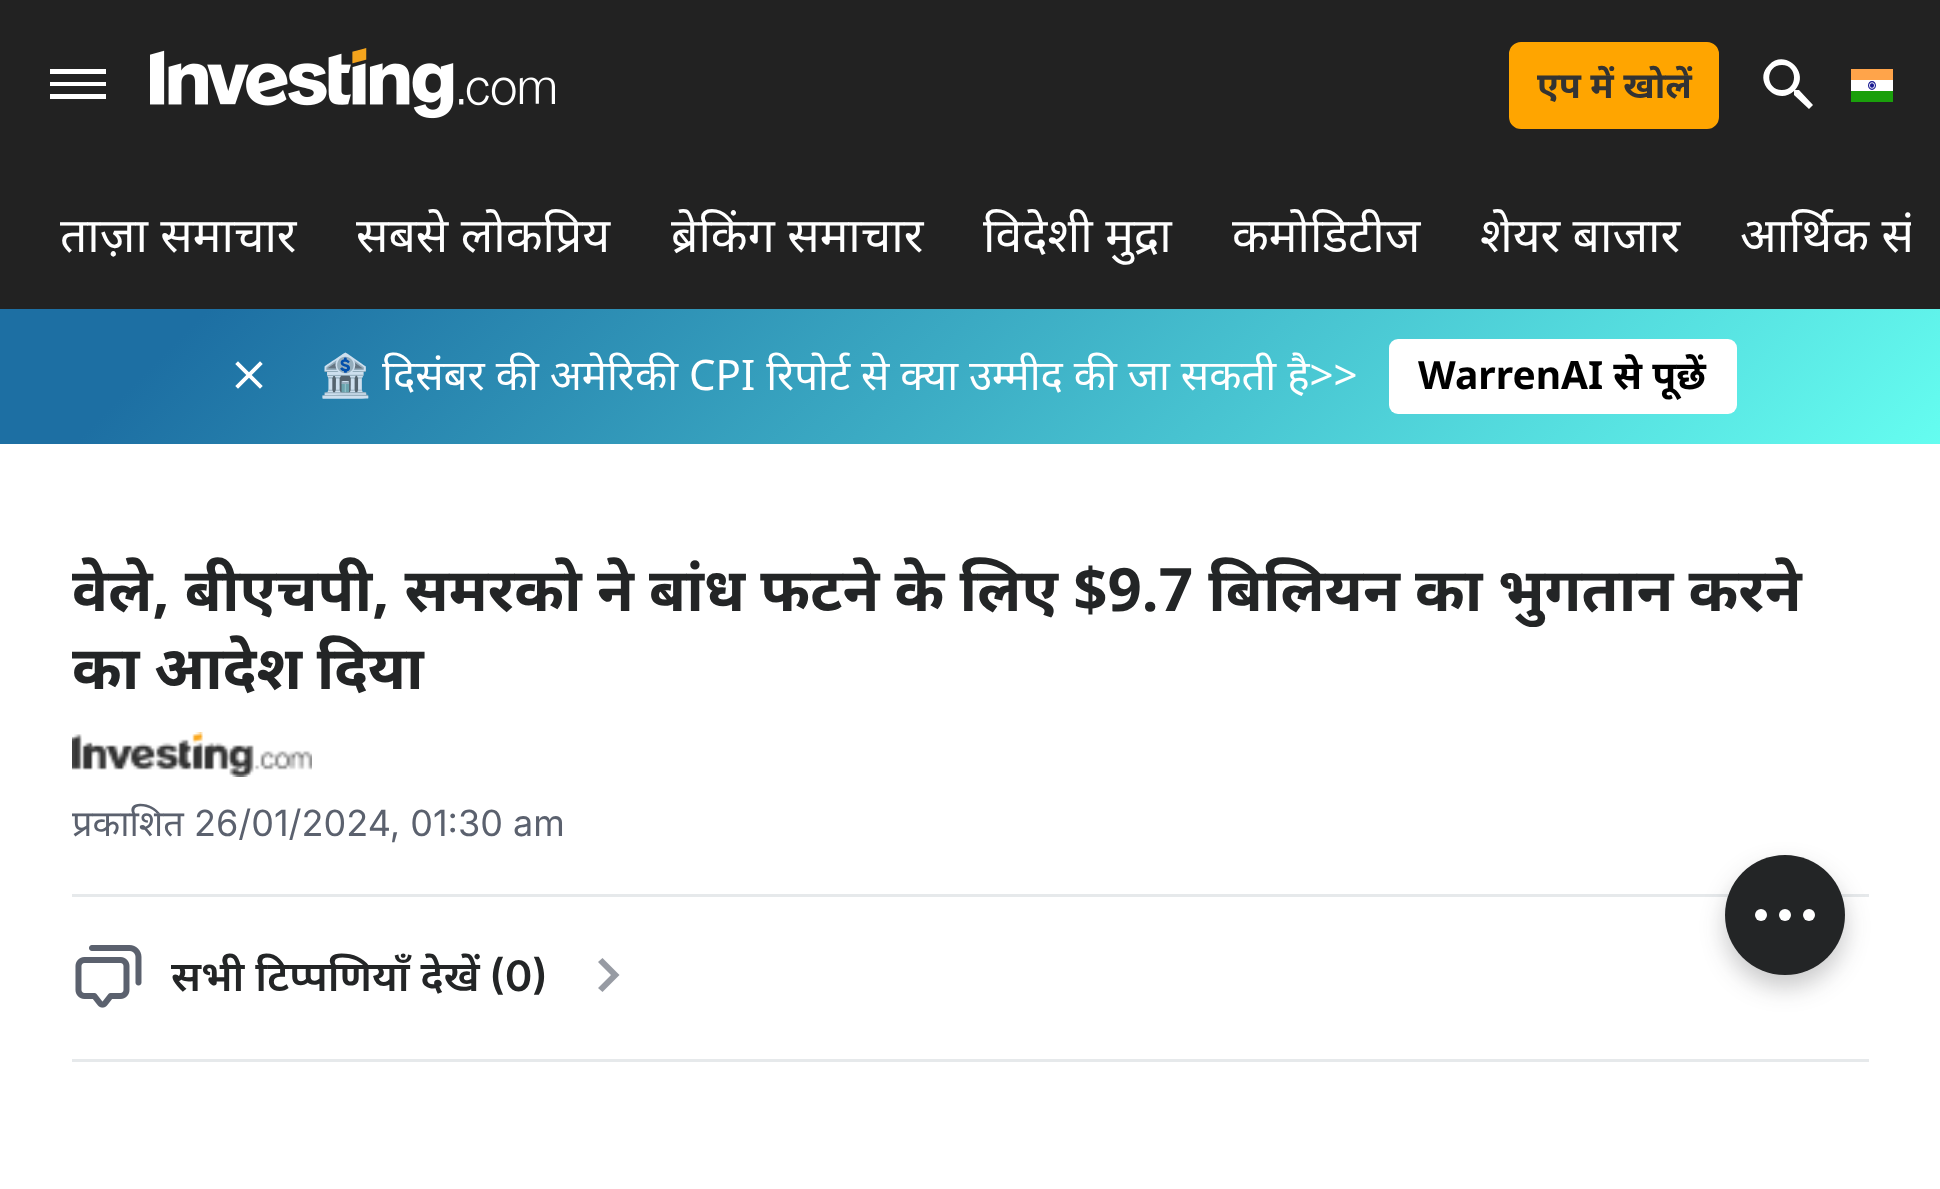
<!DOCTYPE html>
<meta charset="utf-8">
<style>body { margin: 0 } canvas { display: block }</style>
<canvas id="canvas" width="1940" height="1189"></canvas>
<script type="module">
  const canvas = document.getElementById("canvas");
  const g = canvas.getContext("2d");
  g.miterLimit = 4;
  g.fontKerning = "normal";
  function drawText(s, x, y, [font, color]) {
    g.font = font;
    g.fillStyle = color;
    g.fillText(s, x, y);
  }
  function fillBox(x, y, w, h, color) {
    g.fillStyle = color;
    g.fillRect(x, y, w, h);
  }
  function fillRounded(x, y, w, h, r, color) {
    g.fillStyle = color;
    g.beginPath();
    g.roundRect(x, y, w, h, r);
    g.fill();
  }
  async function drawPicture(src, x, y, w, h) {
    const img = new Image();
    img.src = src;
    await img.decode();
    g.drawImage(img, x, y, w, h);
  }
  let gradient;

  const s1 = ["bold 36px Noto Sans", "#333333"];
  const s2 = ["48px Noto Sans", "#FFFFFF"];
  const s3 = ["42px Noto Color Emoji", "#FFFFFF"];
  const s4 = ["42px Noto Sans", "#FFFFFF"];
  const s5 = ["bold 39px Noto Sans", "#000000"];
  const s6 = ["bold 60px Noto Sans", "#232526"];
  const s7 = ["36px Noto Sans", "#5B616E"];
  const s8 = ["36px Inter", "#5B616E"];
  const s9 = ["600 42px Noto Sans", "#232526"];
  const s10 = ["600 42px Inter", "#232526"];

  fillBox(0, 0, 1940, 1189, "#FFFFFF");
  fillBox(0, 0, 1940, 309, "#222222");
  g.fillStyle = "#FFFFFF";
  g.beginPath();
  g.moveTo(50, 99);
  g.lineTo(106, 99);
  g.lineTo(106, 94);
  g.lineTo(50, 94);
  g.closePath();
  g.moveTo(50, 86);
  g.lineTo(106, 86);
  g.lineTo(106, 82);
  g.lineTo(50, 82);
  g.closePath();
  g.moveTo(50, 69);
  g.lineTo(50, 74);
  g.lineTo(106, 74);
  g.lineTo(106, 69);
  g.closePath();
  g.fill("evenodd");
  await drawPicture("pic1.png", 150, 48, 405, 71);
  g.fillStyle = "#FFA500";
  g.beginPath();
  g.roundRect(1510.5, 43.5, 207, 84, 10.5);
  g.fill();
  g.strokeStyle = "#FFA500";
  g.lineWidth = 3;
  g.stroke();
  drawText("एप में खोलें", 1537, 98, s1);
  g.fillStyle = "#FFFFFF";
  g.beginPath();
  g.moveTo(1799, 90);
  g.lineTo(1796, 90);
  g.lineTo(1795, 90);
  g.bezierCurveTo(1811, 73, 1785, 48, 1769, 65);
  g.bezierCurveTo(1752, 81, 1777, 107, 1794, 91);
  g.lineTo(1794, 92);
  g.lineTo(1794, 95);
  g.lineTo(1809, 109);
  g.lineTo(1813, 105);
  g.closePath();
  g.moveTo(1782, 90);
  g.bezierCurveTo(1765, 90, 1765, 65, 1782, 65);
  g.bezierCurveTo(1798, 65, 1798, 90, 1782, 90);
  g.closePath();
  g.fill();
  await drawPicture("pic2.png", 1851, 69, 42, 33);
  drawText("ताज़ा समाचार", 60, 252, s2);
  drawText("सबसे लोकप्रिय", 356, 252, s2);
  drawText("ब्रेकिंग समाचार", 671, 252, s2);
  drawText("विदेशी मुद्रा", 983, 252, s2);
  drawText("कमोडिटीज", 1232, 252, s2);
  drawText("शेयर बाजार", 1480, 252, s2);
  g.save();
  g.beginPath();
  g.rect(30, 168, 1881, 141);
  g.clip();
  drawText("आर्थिक सं", 1740, 252, s2);
  g.restore();
  gradient = g.createLinearGradient(451, -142, 1490, 896);
  gradient.addColorStop(0.1, "#1D6FA3");
  gradient.addColorStop(1, "#65FDF0");
  g.fillStyle = gradient;
  g.fillRect(0, 309, 1940, 135);
  await drawPicture("pic3.png", 235, 361, 28, 28);
  drawText("🏦", 319, 390, s3);
  drawText("दिसंबर की अमेरिकी CPI रिपोर्ट से क्या उम्मीद की जा सकती है>>", 382, 390, s4);
  fillRounded(1389, 339, 348, 75, 9, "#FFFFFF");
  drawText("WarrenAI से पूछें", 1418, 389, s5);
  g.wordSpacing = "-0.4px";
  drawText("वेले, बीएचपी, समरको ने बांध फटने के लिए $9.7 बिलियन का भुगतान करने", 72, 611, s6);
  g.wordSpacing = "-1px";
  drawText("का आदेश दिया", 72, 689, s6);
  await drawPicture("pic4.png", 72, 732, 240, 45);
  g.wordSpacing = "0px";
  drawText("प्रकाशित", 72, 836, s7);
  drawText("26/01/2024, 01:30 am", 194, 836, s8);
  fillBox(72, 894, 1797, 3, "#E6E9EB");
  await drawPicture("pic5.png", 75, 945, 67, 63);
  drawText("सभी टिप्पणियाँ देखें", 171, 991, s9);
  drawText("(0)", 489, 991, s10);
  g.fillStyle = "#979BA3";
  g.beginPath();
  g.moveTo(619.5, 975);
  g.lineTo(602.5, 992);
  g.lineTo(598, 988);
  g.lineTo(611, 975);
  g.lineTo(598, 962);
  g.lineTo(602.5, 958);
  g.closePath();
  g.fill("evenodd");
  fillBox(72, 1059, 1797, 3, "#E6E9EB");
  g.fillStyle = "rgba(35, 37, 38, 0.25)";
  g.filter = "blur(12px)";
  g.beginPath();
  g.roundRect(1725, 867, 120, 120, 60);
  g.fill();
  g.filter = "none";
  g.fillStyle = "#232526";
  g.beginPath();
  g.arc(1785, 915, 60, 0, Math.PI * 2);
  g.fill();
  g.fillStyle = "#FFFFFF";
  g.beginPath();
  g.arc(1809, 915, 6, 0, Math.PI * 2);
  g.fill();
  g.beginPath();
  g.arc(1761, 915, 6, 0, Math.PI * 2);
  g.fill();
  g.beginPath();
  g.arc(1785, 915, 6, 0, Math.PI * 2);
  g.fill();
</script>
